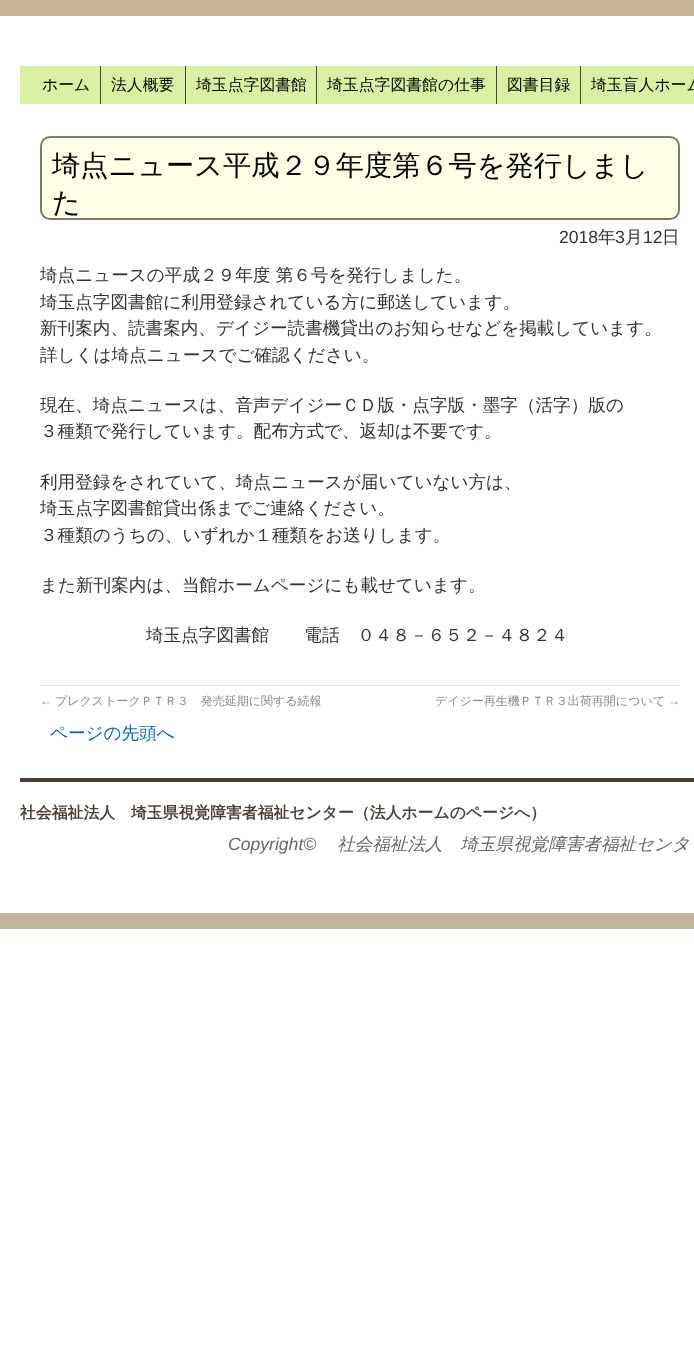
<!DOCTYPE html>
<meta charset="utf-8">
<style>body { margin: 0 } canvas { display: block }</style>
<canvas id="canvas" width="694" height="1362"></canvas>
<script type="module">
  const canvas = document.getElementById("canvas");
  const g = canvas.getContext("2d");
  g.miterLimit = 4;
  g.fontKerning = "normal";
  function drawText(s, x, y, [font, color]) {
    g.font = font;
    g.fillStyle = color;
    g.fillText(s, x, y);
  }
  function fillBox(x, y, w, h, color) {
    g.fillStyle = color;
    g.fillRect(x, y, w, h);
  }

  const s1 = ["500 15.85px WenQuanYi Zen Hei", "#000000"];
  const s2 = ["500 28.2px WenQuanYi Zen Hei", "#000000"];
  const s3 = ["17.6px Liberation Sans", "#333333"];
  const s4 = ["500 17.6px WenQuanYi Zen Hei", "#333333"];
  const s5 = ["12px Liberation Sans", "#888888"];
  const s6 = ["500 12px WenQuanYi Zen Hei", "#888888"];
  const s7 = ["500 17.6px WenQuanYi Zen Hei", "#0066CC"];
  const s8 = ["bold 15.85px WenQuanYi Zen Hei", "#4C3F37"];
  const s9 = ["italic 17.6px Liberation Sans", "#666666"];
  const s10 = ["italic 500 17.6px WenQuanYi Zen Hei", "#666666"];

  fillBox(0, 0, 694, 1362, "#FFFFFF");
  fillBox(0, 0, 694, 16, "#C5B399");
  fillBox(20, 66, 674, 38, "#D9F0A3");
  fillBox(100, 66, 1, 38, "#4C3F37");
  drawText("ホーム", 42, 90, s1);
  fillBox(185, 66, 1, 38, "#4C3F37");
  drawText("法人概要", 111, 90, s1);
  fillBox(316, 66, 1, 38, "#4C3F37");
  drawText("埼玉点字図書館", 196, 90, s1);
  fillBox(496, 66, 1, 38, "#4C3F37");
  drawText("埼玉点字図書館の仕事", 327, 90, s1);
  fillBox(580, 66, 1, 38, "#4C3F37");
  drawText("図書目録", 507, 90, s1);
  drawText("埼玉盲人ホーム", 591, 90, s1);
  g.fillStyle = "#FFFFE5";
  g.beginPath();
  g.roundRect(41, 137, 638, 82, 9);
  g.fill();
  g.strokeStyle = "#847767";
  g.lineWidth = 2;
  g.stroke();
  drawText("埼点ニュース平成２９年度第６号を発行しまし", 52, 175, s2);
  drawText("た", 52, 212, s2);
  drawText("2018", 559, 243, s3);
  drawText("年", 598, 243, s4);
  drawText("3", 615, 243, s3);
  drawText("月", 625, 243, s4);
  drawText("12", 643, 243, s3);
  drawText("日", 662, 243, s4);
  drawText("埼点ニュースの平成２９年度 第６号を発行しました。", 40, 281, s4);
  drawText("埼玉点字図書館に利用登録されている方に郵送しています。", 40, 308, s4);
  drawText("新刊案内、読書案内、デイジー読書機貸出のお知らせなどを掲載しています。", 40, 334, s4);
  drawText("詳しくは埼点ニュースでご確認ください。", 40, 361, s4);
  drawText("現在、埼点ニュースは、音声デイジーＣＤ版・点字版・墨字（活字）版の", 40, 411, s4);
  drawText("３種類で発行しています。配布方式で、返却は不要です。", 40, 437, s4);
  drawText("利用登録をされていて、埼点ニュースが届いていない方は、", 40, 488, s4);
  drawText("埼玉点字図書館貸出係までご連絡ください。", 40, 514, s4);
  drawText("３種類のうちの、いずれか１種類をお送りします。", 40, 541, s4);
  drawText("また新刊案内は、当館ホームページにも載せています。", 40, 591, s4);
  drawText("埼玉点字図書館　　電話　０４８－６５２－４８２４", 146, 641, s4);
  fillBox(40, 685, 640, 1, "#E7E7E7");
  drawText("←", 40, 705, s5);
  drawText("プレクストークＰＴＲ３　発売延期に関する続報", 55, 705, s6);
  drawText("デイジー再生機ＰＴＲ３出荷再開について", 435, 705, s6);
  drawText("→", 668, 705, s5);
  drawText("ページの先頭へ", 50, 739, s7);
  fillBox(20, 778, 674, 4, "#4C3F37");
  drawText("社会福祉法人　埼玉県視覚障害者福祉センター（法人ホームのページへ）", 20, 818, s8);
  drawText("Copyright©", 228, 850, s9);
  drawText("社会福祉法人　埼玉県視覚障害者福祉センタ", 337, 850, s10);
  fillBox(0, 913, 694, 16, "#C5B399");
</script>
